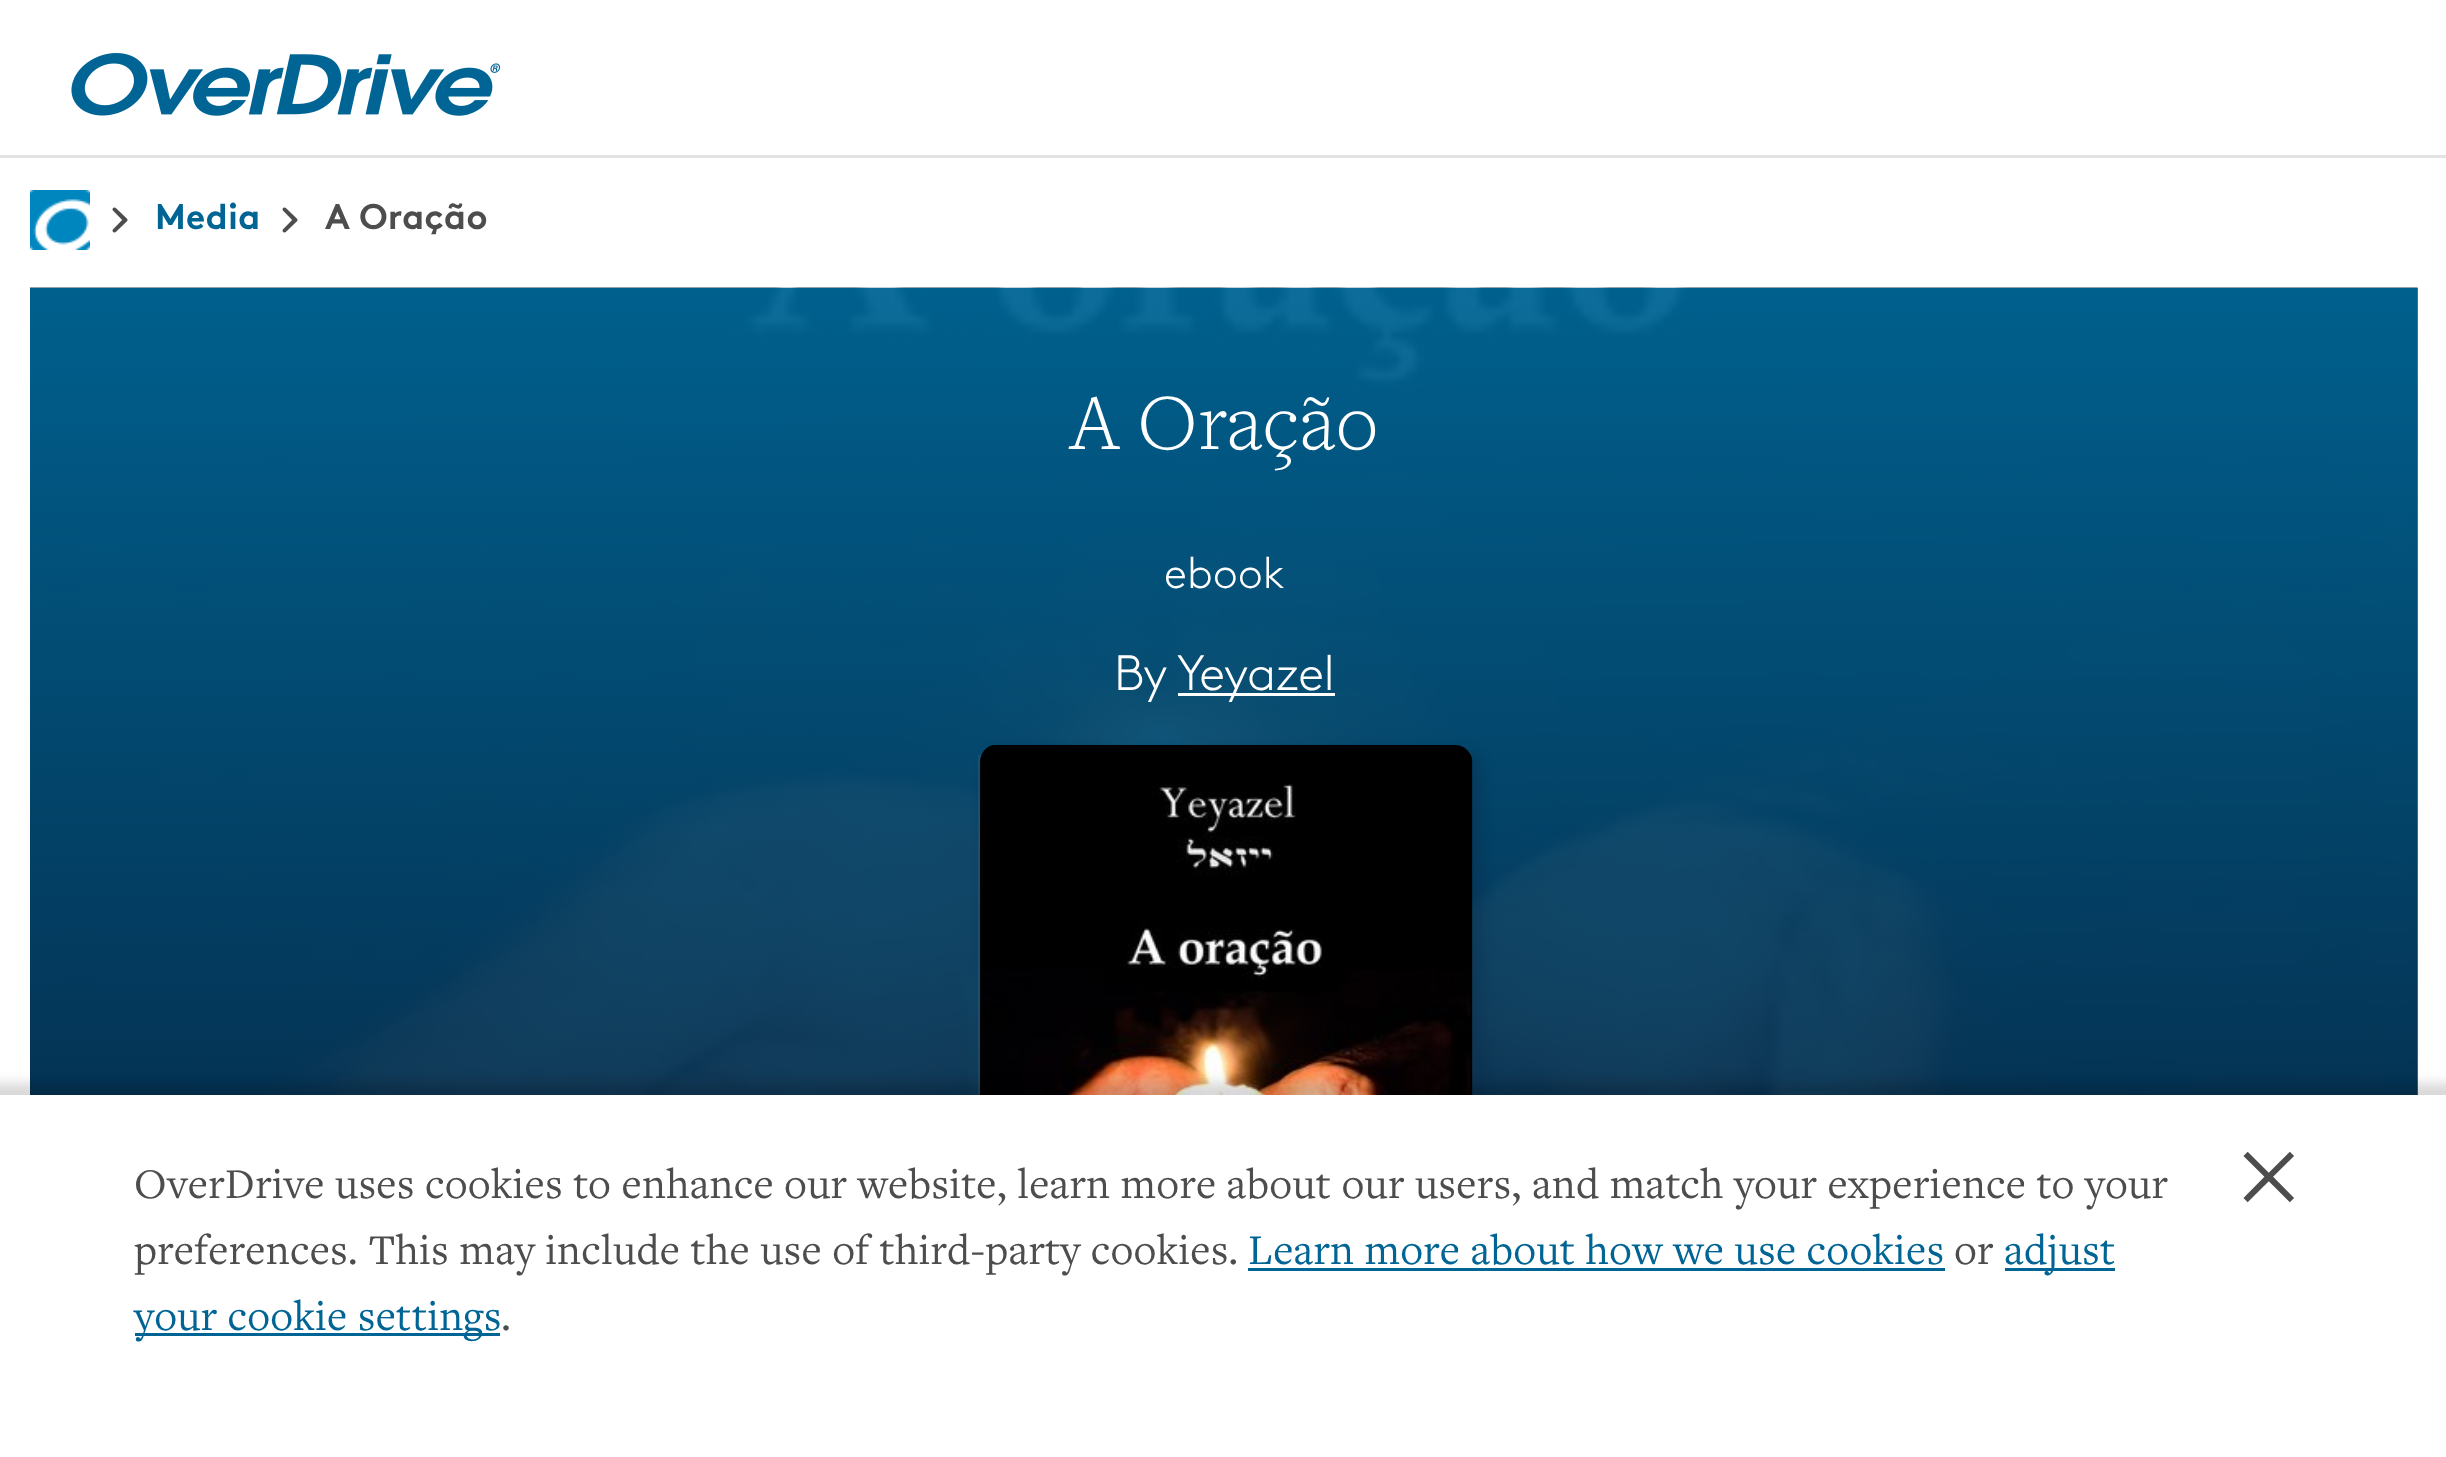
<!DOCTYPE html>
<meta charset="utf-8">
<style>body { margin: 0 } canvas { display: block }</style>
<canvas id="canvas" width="2446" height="1457"></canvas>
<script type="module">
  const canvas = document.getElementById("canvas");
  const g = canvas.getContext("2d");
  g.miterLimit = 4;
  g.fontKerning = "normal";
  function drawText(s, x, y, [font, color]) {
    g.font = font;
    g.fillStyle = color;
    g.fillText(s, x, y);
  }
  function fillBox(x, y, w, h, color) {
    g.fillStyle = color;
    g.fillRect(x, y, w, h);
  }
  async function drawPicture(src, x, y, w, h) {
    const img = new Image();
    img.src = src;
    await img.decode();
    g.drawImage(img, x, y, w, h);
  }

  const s1 = ["bold 35.75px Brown", "#006595"];
  const s2 = ["bold 35.75px Brown", "#4D4D4D"];
  const s3 = ["300 82.5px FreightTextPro", "#FFFFFF"];
  const s4 = ["300 44px Brown", "#FFFFFF"];
  const s5 = ["300 49.5px Brown", "#FFFFFF"];
  const s6 = ["44px FreightTextPro", "#4D4D4D"];
  const s7 = ["44px FreightTextPro", "#006595"];
  const s8 = ["124px FreightTextPro", "#4D4D4D"];

  fillBox(0, 0, 2446, 1457, "#FFFFFF");
  fillBox(0, 155, 2446, 3, "#E3E3E3");
  await drawPicture("pic1.png", 71, 53, 430, 63);
  await drawPicture("pic2.png", 30, 190, 60, 60);
  await drawPicture("pic3.png", 112, 207, 16, 26);
  g.letterSpacing = "0.28px";
  drawText("Media", 155, 229, s1);
  await drawPicture("pic3.png", 282, 207, 16, 26);
  drawText("A Oração", 325, 229, s2);
  await drawPicture("pic4.png", 30, 287, 2388, 808);
  g.letterSpacing = "0px";
  drawText("A Oração", 1070, 449, s3);
  drawText("ebook", 1164, 588, s4);
  g.letterSpacing = "-0.5px";
  drawText("By", 1114, 690, s5);
  fillBox(1178, 693, 157, 3, "#FFFFFF");
  drawText("Yeyazel", 1177, 690, s5);
  g.save();
  g.beginPath();
  g.moveTo(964, 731);
  g.lineTo(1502, 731);
  g.lineTo(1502, 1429);
  g.lineTo(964, 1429);
  g.closePath();
  g.moveTo(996, 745);
  g.lineTo(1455, 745);
  g.bezierCurveTo(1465, 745, 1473, 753, 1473, 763);
  g.lineTo(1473, 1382);
  g.bezierCurveTo(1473, 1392, 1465, 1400, 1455, 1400);
  g.lineTo(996, 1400);
  g.bezierCurveTo(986, 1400, 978, 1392, 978, 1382);
  g.lineTo(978, 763);
  g.bezierCurveTo(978, 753, 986, 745, 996, 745);
  g.closePath();
  g.clip("evenodd");
  g.fillStyle = "rgba(6, 35, 64, 0.25)";
  g.filter = "blur(6px)";
  g.beginPath();
  g.roundRect(983, 750, 500, 660, 20);
  g.fill();
  g.filter = "none";
  g.restore();
  fillBox(978, 755, 3, 340, "rgba(167, 169, 172, 0.1)");
  await drawPicture("pic5.png", 980, 745, 493, 350);
  g.fillStyle = "rgba(0, 0, 0, 0.15)";
  g.filter = "blur(6px)";
  g.beginPath();
  g.rect(-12, 1083, 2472, 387);
  g.fill();
  g.filter = "none";
  fillBox(0, 1095, 2446, 362, "#FFFFFF");
  g.letterSpacing = "0.28px";
  drawText("OverDrive uses cookies to enhance our website, learn more about our users, and match your experience to your", 134, 1198, s6);
  drawText("preferences. This may include the use of third-party cookies.", 134, 1264, s6);
  drawText("Learn more about how we use cookies", 1248, 1264, s7);
  fillBox(1248, 1268, 697, 3, "#006595");
  drawText("or", 1954, 1264, s6);
  fillBox(2005, 1268, 110, 3, "#006595");
  drawText("adjust", 2004, 1264, s7);
  fillBox(135, 1333, 365, 3, "#006595");
  drawText("your cookie settings", 134, 1330, s7);
  drawText(".", 501, 1330, s6);
  g.letterSpacing = "0px";
  drawText("×", 2239, 1206, s8);
</script>
